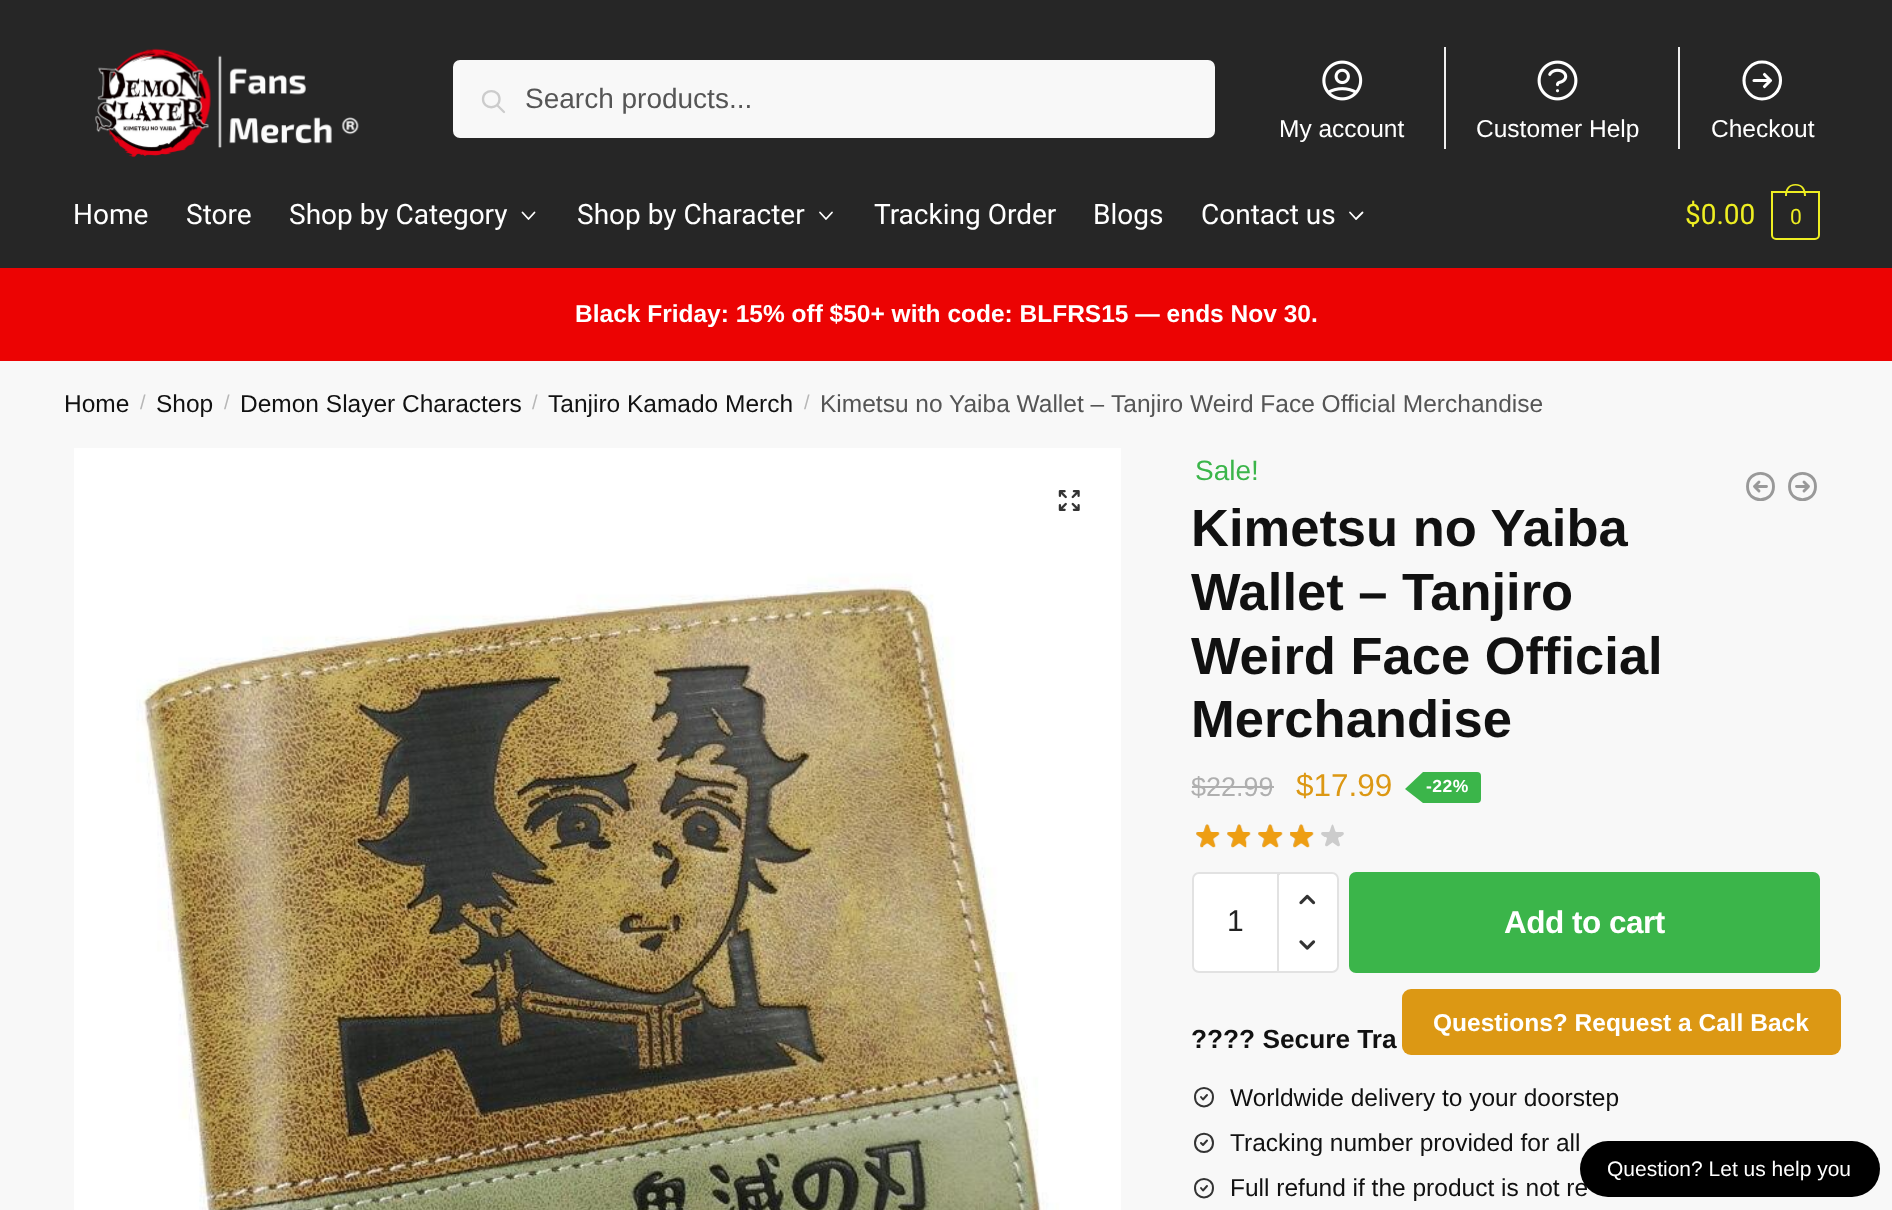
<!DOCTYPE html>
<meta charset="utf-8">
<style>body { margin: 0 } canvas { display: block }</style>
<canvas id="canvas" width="1892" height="1210"></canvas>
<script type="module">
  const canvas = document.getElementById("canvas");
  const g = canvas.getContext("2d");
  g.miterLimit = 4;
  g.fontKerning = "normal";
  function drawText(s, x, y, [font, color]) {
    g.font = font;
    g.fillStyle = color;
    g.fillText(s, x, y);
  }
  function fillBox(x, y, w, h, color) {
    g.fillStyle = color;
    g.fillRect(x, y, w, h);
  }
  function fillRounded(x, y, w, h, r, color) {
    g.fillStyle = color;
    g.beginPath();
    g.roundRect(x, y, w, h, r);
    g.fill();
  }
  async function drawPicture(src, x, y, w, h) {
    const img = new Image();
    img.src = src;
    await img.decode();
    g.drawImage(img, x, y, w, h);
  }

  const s1 = ["28px Liberation Sans", "#555555"];
  const s2 = ["24.5px Liberation Sans", "#FFFFFF"];
  const s3 = ["28px Roboto", "#FFFFFF"];
  const s4 = ["28px Roboto", "#EEEE22"];
  const s5 = ["21px Roboto", "#EEEE22"];
  const s6 = ["bold 24.5px Liberation Sans", "#FFFFFF"];
  const s7 = ["24.5px Liberation Sans", "#111111"];
  const s8 = ["20px Liberation Sans", "#B7B7B7"];
  const s9 = ["24.5px Liberation Sans", "#555555"];
  const s10 = ["28px Liberation Sans", "#3BB54A"];
  const s11 = ["bold 52.5px Liberation Sans", "#111111"];
  const s12 = ["27px Liberation Sans", "#AFAFAF"];
  const s13 = ["31.5px Liberation Sans", "#DC9814"];
  const s14 = ["bold 17.5px Liberation Sans", "#FFFFFF"];
  const s15 = ["30px Liberation Sans", "#222222"];
  const s16 = ["bold 31.5px Liberation Sans", "#FFFFFF"];
  const s17 = ["bold 26.25px Liberation Sans", "#111111"];
  const s18 = ["21px Liberation Sans", "#FFFFFF"];

  fillBox(0, 0, 1892, 1210, "#EC0303");
  fillBox(0, 0, 1892, 37, "#262626");
  fillBox(0, 37, 1892, 231, "#262626");
  await drawPicture("pic1.png", 95, 48, 264, 110);
  g.fillStyle = "#F8F8F8";
  g.beginPath();
  g.roundRect(454, 61, 760, 76, 6);
  g.fill();
  g.strokeStyle = "#F8F8F8";
  g.lineWidth = 2;
  g.stroke();
  g.beginPath();
  g.moveTo(504, 112);
  g.lineTo(497, 105);
  g.moveTo(499.5, 99);
  g.bezierCurveTo(499.5, 110, 483, 110, 483, 99);
  g.bezierCurveTo(483, 88.5, 499.5, 88.5, 499.5, 99);
  g.closePath();
  g.strokeStyle = "#CCCCCC";
  g.lineWidth = 2.3;
  g.lineCap = "round";
  g.lineJoin = "round";
  g.stroke();
  drawText("Search products...", 525, 108, s1);
  await drawPicture("pic2.png", 1322, 60, 41, 41);
  drawText("My account", 1279, 137, s2);
  fillBox(1444, 47, 2, 102, "#EEEEEE");
  await drawPicture("pic3.png", 1537, 60, 41, 41);
  drawText("Customer Help", 1476, 137, s2);
  fillBox(1678, 47, 2, 102, "#EEEEEE");
  g.beginPath();
  g.moveTo(1764.5, 74.5);
  g.lineTo(1770.5, 80.5);
  g.moveTo(1770.5, 80.5);
  g.lineTo(1764.5, 86.5);
  g.moveTo(1770.5, 80.5);
  g.lineTo(1754, 80.5);
  g.moveTo(1780.5, 80.5);
  g.bezierCurveTo(1780.5, 90.5, 1772.5, 99, 1762, 99);
  g.bezierCurveTo(1752, 99, 1744, 90.5, 1744, 80.5);
  g.bezierCurveTo(1744, 70.5, 1752, 62, 1762, 62);
  g.bezierCurveTo(1772.5, 62, 1780.5, 70.5, 1780.5, 80.5);
  g.closePath();
  g.strokeStyle = "#FFFFFF";
  g.lineWidth = 3.1;
  g.stroke();
  drawText("Checkout", 1711, 137, s2);
  drawText("Home", 73, 224, s3);
  drawText("Store", 186, 224, s3);
  drawText("Shop by Category", 289, 224, s3);
  g.beginPath();
  g.moveTo(534.5, 212.5);
  g.lineTo(528.5, 219);
  g.lineTo(522.5, 212.5);
  g.lineWidth = 1.8;
  g.stroke();
  drawText("Shop by Character", 577, 224, s3);
  g.beginPath();
  g.moveTo(832, 212.5);
  g.lineTo(826, 219);
  g.lineTo(820, 212.5);
  g.stroke();
  drawText("Tracking Order", 874, 224, s3);
  drawText("Blogs", 1093, 224, s3);
  drawText("Contact us", 1201, 224, s3);
  g.beginPath();
  g.moveTo(1362.5, 212.5);
  g.lineTo(1356, 219);
  g.lineTo(1350, 212.5);
  g.stroke();
  drawText("$0.00", 1685, 224, s4);
  g.beginPath();
  g.roundRect(1772, 192, 47, 47, [0, 0, 4, 4]);
  g.strokeStyle = "#EEEE22";
  g.lineWidth = 2;
  g.lineJoin = "miter";
  g.stroke();
  g.beginPath();
  g.moveTo(1795.5, 184);
  g.bezierCurveTo(1803, 184, 1806, 189.5, 1806, 196);
  g.lineTo(1785, 196);
  g.bezierCurveTo(1785, 189.5, 1788, 184, 1795.5, 184);
  g.closePath();
  g.moveTo(1795.5, 185.5);
  g.bezierCurveTo(1802, 185.5, 1804, 190.5, 1804, 196);
  g.lineTo(1787, 196);
  g.bezierCurveTo(1787, 190.5, 1789, 185.5, 1795.5, 185.5);
  g.closePath();
  g.fill("evenodd");
  g.letterSpacing = "-1px";
  drawText("0", 1790, 224, s5);
  g.letterSpacing = "0px";
  drawText("Black Friday: 15% off $50+ with code: BLFRS15 — ends Nov 30.", 575, 322, s6);
  fillBox(0, 361, 1892, 849, "#F8F8F8");
  drawText("Home", 64, 412, s7);
  drawText("/", 140, 409, s8);
  drawText("Shop", 156, 412, s7);
  drawText("/", 224, 409, s8);
  drawText("Demon Slayer Characters", 240, 412, s7);
  drawText("/", 532, 409, s8);
  drawText("Tanjiro Kamado Merch", 548, 412, s7);
  drawText("/", 804, 409, s8);
  drawText("Kimetsu no Yaiba Wallet –", 820, 412, s9);
  drawText("Tanjiro Weird Face Official Merchandise", 1111, 412, s9);
  await drawPicture("pic4.png", 74, 448, 1047, 762);
  await drawPicture("pic5.png", 1058, 490, 22, 21);
  drawText("Sale!", 1195, 480, s10);
  g.beginPath();
  g.moveTo(1759, 491);
  g.lineTo(1754.5, 486.5);
  g.moveTo(1754.5, 486.5);
  g.lineTo(1759, 482);
  g.moveTo(1754.5, 486.5);
  g.lineTo(1766.5, 486.5);
  g.moveTo(1747.5, 486.5);
  g.bezierCurveTo(1747.5, 469, 1773.5, 469, 1773.5, 486.5);
  g.bezierCurveTo(1773.5, 504, 1747.5, 504, 1747.5, 486.5);
  g.closePath();
  g.strokeStyle = "#999999";
  g.lineWidth = 2.9;
  g.lineJoin = "round";
  g.stroke();
  g.beginPath();
  g.moveTo(1804, 482);
  g.lineTo(1808.5, 486.5);
  g.moveTo(1808.5, 486.5);
  g.lineTo(1804, 491);
  g.moveTo(1808.5, 486.5);
  g.lineTo(1796.5, 486.5);
  g.moveTo(1815.5, 486.5);
  g.bezierCurveTo(1815.5, 504, 1789.5, 504, 1789.5, 486.5);
  g.bezierCurveTo(1789.5, 469, 1815.5, 469, 1815.5, 486.5);
  g.closePath();
  g.stroke();
  drawText("Kimetsu no Yaiba", 1191, 546, s11);
  drawText("Wallet – Tanjiro", 1191, 610, s11);
  drawText("Weird Face Official", 1191, 674, s11);
  drawText("Merchandise", 1191, 737, s11);
  drawText("$22.99", 1191, 796, s12);
  fillBox(1192, 786, 82, 2, "#AFAFAF");
  drawText("$17.99", 1296, 796, s13);
  g.fillStyle = "#3BB54A";
  g.beginPath();
  g.roundRect(1423, 772, 58, 31, [0, 4, 4, 0]);
  g.fill();
  g.beginPath();
  g.moveTo(1423, 772);
  g.lineTo(1423, 803);
  g.lineTo(1405, 789);
  g.closePath();
  g.fill();
  g.letterSpacing = "0.5px";
  drawText("-22%", 1426, 792, s14);
  await drawPicture("pic6.png", 1196, 824, 148, 23);
  await drawPicture("pic7.png", 1196, 824, 118, 24);
  g.beginPath();
  g.roundRect(1193, 873, 85, 99, [6, 0, 0, 6]);
  g.fill();
  g.strokeStyle = "#E2E2E2";
  g.lineWidth = 2;
  g.lineJoin = "miter";
  g.stroke();
  g.letterSpacing = "0px";
  drawText("1", 1227, 931, s15);
  g.fillStyle = "#FFFFFF";
  g.beginPath();
  g.roundRect(1279, 873, 59, 99, [0, 6, 6, 0]);
  g.fill();
  g.stroke();
  g.beginPath();
  g.roundRect(1279, 875, 58, 51, [0, 7, 7, 0]);
  g.fill();
  await drawPicture("pic8.png", 1299, 894, 17, 11);
  g.beginPath();
  g.roundRect(1279, 921, 58, 50, [0, 7, 7, 0]);
  g.fill();
  await drawPicture("pic9.png", 1299, 940, 17, 10);
  fillRounded(1349, 872, 471, 101, 7, "#3BB54A");
  g.letterSpacing = "-0.5px";
  drawText("Add to cart", 1504, 933, s16);
  g.letterSpacing = "0px";
  drawText("???? Secure Tra", 1191, 1048, s17);
  g.beginPath();
  g.moveTo(1201, 1097);
  g.lineTo(1203, 1099.5);
  g.lineTo(1207, 1095);
  g.moveTo(1213, 1097);
  g.bezierCurveTo(1213, 1109.5, 1195, 1109.5, 1195, 1097);
  g.bezierCurveTo(1195, 1085, 1213, 1085, 1213, 1097);
  g.closePath();
  g.strokeStyle = "#333333";
  g.lineJoin = "round";
  g.stroke();
  drawText("Worldwide delivery to your doorstep", 1230, 1106, s7);
  g.beginPath();
  g.moveTo(1201, 1143);
  g.lineTo(1203, 1145);
  g.lineTo(1207, 1140.5);
  g.moveTo(1213, 1143);
  g.bezierCurveTo(1213, 1155, 1195, 1155, 1195, 1143);
  g.bezierCurveTo(1195, 1130.5, 1213, 1130.5, 1213, 1143);
  g.closePath();
  g.stroke();
  drawText("Tracking number provided for all", 1230, 1151, s7);
  g.beginPath();
  g.moveTo(1201, 1188);
  g.lineTo(1203, 1190.5);
  g.lineTo(1207, 1186);
  g.moveTo(1213, 1188);
  g.bezierCurveTo(1213, 1200.5, 1195, 1200.5, 1195, 1188);
  g.bezierCurveTo(1195, 1176, 1213, 1176, 1213, 1188);
  g.closePath();
  g.stroke();
  drawText("Full refund if the product is not re", 1230, 1196, s7);
  fillRounded(1402, 989, 439, 66, 9, "#DC9814");
  drawText("Questions? Request a Call Back", 1433, 1031, s6);
  fillRounded(1580, 1141, 300, 56, 28, "#000000");
  drawText("Question? Let us help you", 1607, 1176, s18);
</script>
